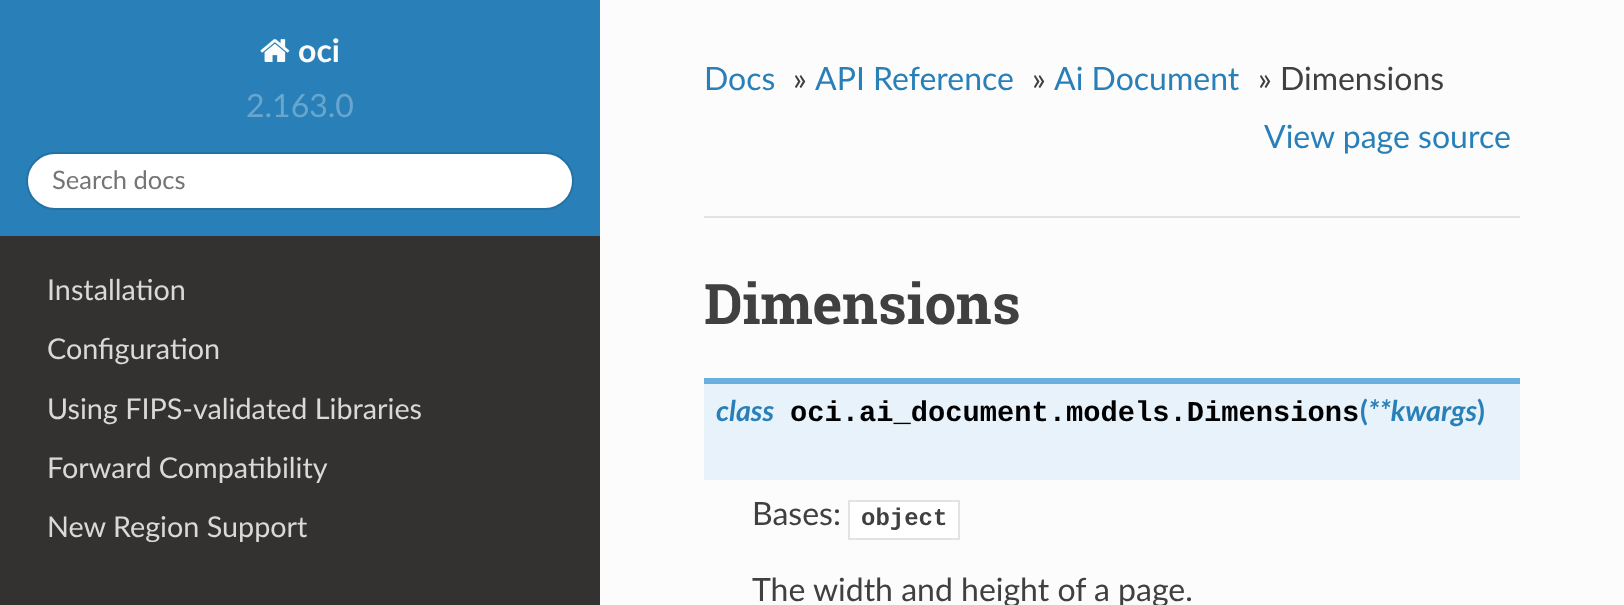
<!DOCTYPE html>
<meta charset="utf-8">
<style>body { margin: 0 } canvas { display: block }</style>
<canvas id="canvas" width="1624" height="605"></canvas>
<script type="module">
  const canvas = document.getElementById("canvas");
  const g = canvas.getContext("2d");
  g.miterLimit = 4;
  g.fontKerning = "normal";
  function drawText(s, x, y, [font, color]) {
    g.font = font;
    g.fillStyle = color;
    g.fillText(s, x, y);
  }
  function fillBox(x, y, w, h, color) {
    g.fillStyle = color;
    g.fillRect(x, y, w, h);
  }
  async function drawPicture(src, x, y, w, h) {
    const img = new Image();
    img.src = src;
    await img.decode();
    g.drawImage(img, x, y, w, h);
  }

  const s1 = ["bold 32px Lato", "#FCFCFC"];
  const s2 = ["32px Lato", "#69A6CE"];
  const s3 = ["25.5px Lato", "#757575"];
  const s4 = ["28.75px Lato", "#D9D9D9"];
  const s5 = ["32px Lato", "#2980B9"];
  const s6 = ["32px Lato", "#404040"];
  const s7 = ["bold 56px Roboto Slab", "#404040"];
  const s8 = ["italic bold 28.75px Lato", "#2980B9"];
  const s9 = ["bold 28.75px Liberation Mono", "#000000"];
  const s10 = ["bold 28.75px Lato", "#2980B9"];
  const s11 = ["bold 24px Liberation Mono", "#404040"];

  fillBox(0, 0, 1624, 605, "#FCFCFC");
  fillBox(0, 236, 600, 369, "#343131");
  fillBox(0, 0, 600, 236, "#2980B9");
  await drawPicture("pic1.png", 260, 39, 30, 23);
  drawText("oci", 298, 62, s1);
  drawText("2.163.0", 246, 117, s2);
  g.fillStyle = "#FFFFFF";
  g.beginPath();
  g.roundRect(27, 153, 546, 56, 28);
  g.fill();
  g.strokeStyle = "#2472A4";
  g.lineWidth = 2;
  g.stroke();
  drawText("Search docs", 52, 189, s3);
  drawText("Installation", 47, 300, s4);
  drawText("Configuration", 47, 359, s4);
  drawText("Using FIPS-validated Libraries", 47, 419, s4);
  drawText("Forward Compatibility", 47, 478, s4);
  g.save();
  g.beginPath();
  g.rect(0, 0, 600, 542);
  g.clip();
  drawText("New Region Support", 47, 537, s4);
  g.restore();
  drawText("Docs", 704, 90, s5);
  drawText("»", 793, 90, s6);
  drawText("API Reference", 815, 90, s5);
  drawText("»", 1032, 90, s6);
  drawText("Ai Document", 1054, 90, s5);
  drawText("» Dimensions", 1258, 90, s6);
  drawText("View page source", 1264, 148, s5);
  fillBox(704, 216, 816, 2, "#E1E4E5");
  drawText("Dimensions", 704, 324, s7);
  fillBox(704, 384, 816, 96, "#E7F2FA");
  fillBox(704, 378, 816, 6, "#6AB0DE");
  drawText("class", 716, 421, s8);
  drawText("oci.ai_document.models.Dimensions", 790, 421, s9);
  drawText("(", 1360, 421, s10);
  drawText("**kwargs", 1368, 421, s8);
  drawText(")", 1477, 421, s10);
  drawText("Bases:", 752, 525, s6);
  g.fillStyle = "#FFFFFF";
  g.beginPath();
  g.rect(849, 501, 110, 38);
  g.fill();
  g.strokeStyle = "#E1E4E5";
  g.stroke();
  drawText("object", 861, 525, s11);
  drawText("The width and height of a page.", 752, 601, s6);
</script>
